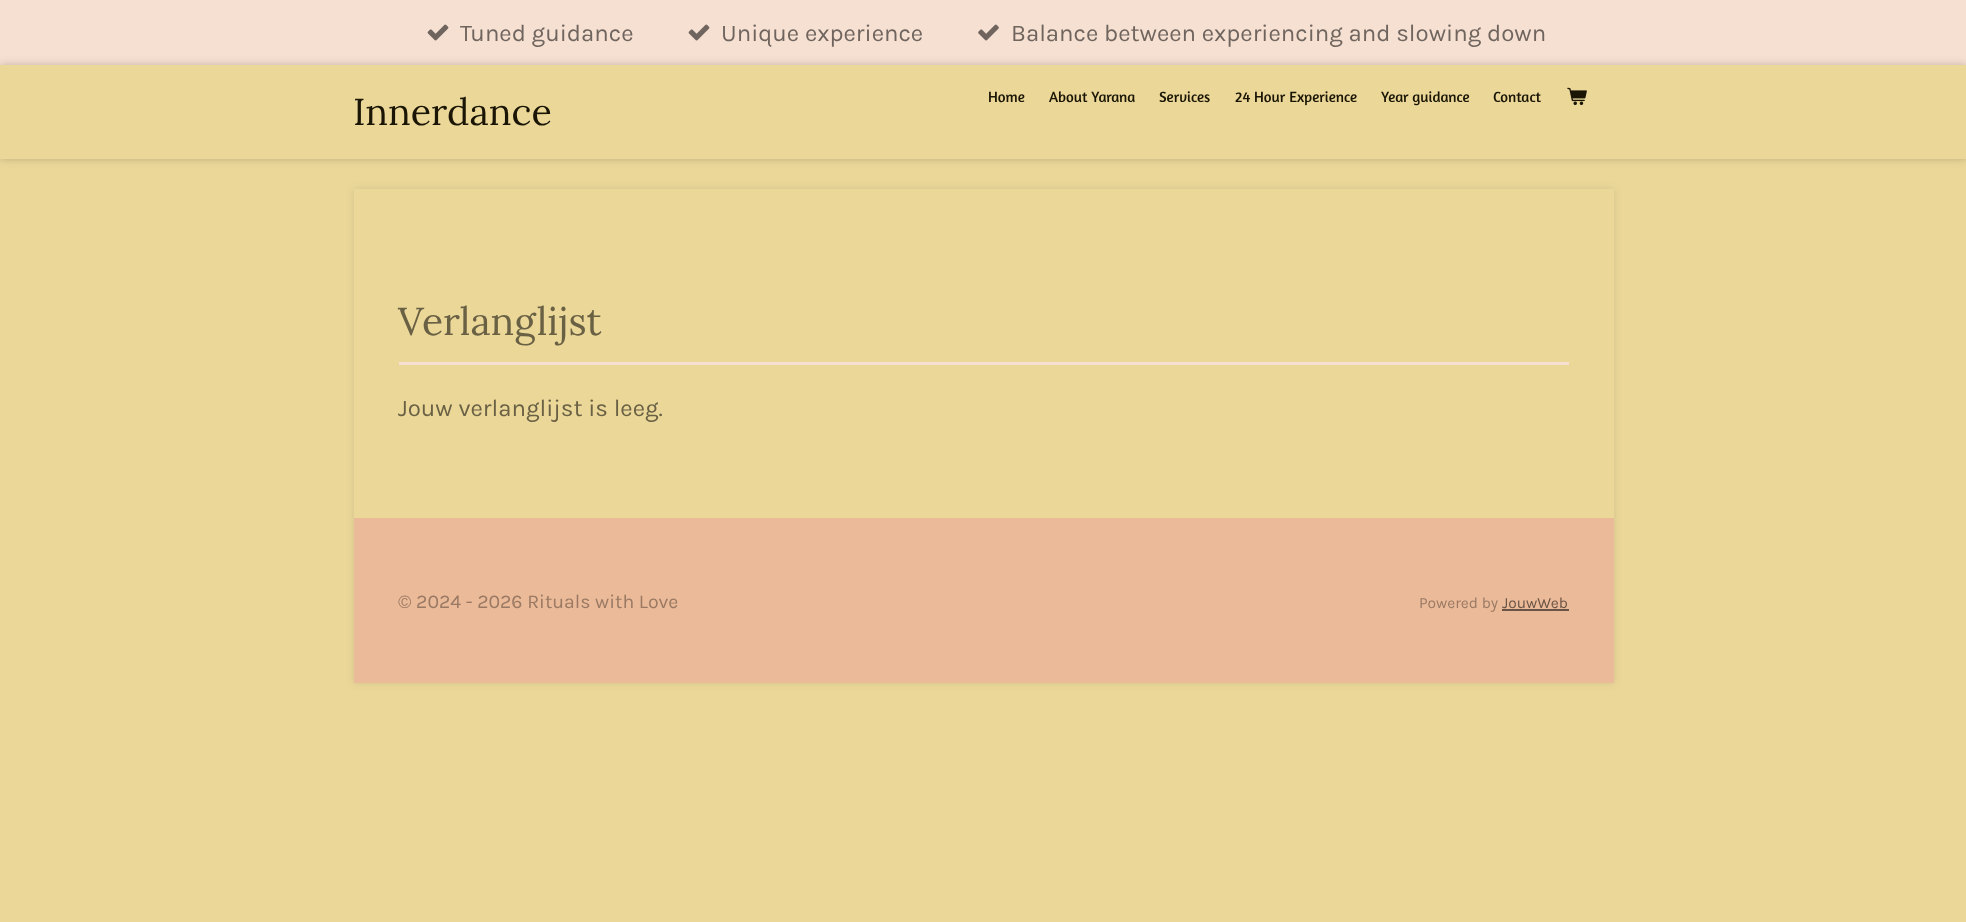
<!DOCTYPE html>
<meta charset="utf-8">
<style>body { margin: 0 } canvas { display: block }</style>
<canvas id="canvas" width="1966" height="922"></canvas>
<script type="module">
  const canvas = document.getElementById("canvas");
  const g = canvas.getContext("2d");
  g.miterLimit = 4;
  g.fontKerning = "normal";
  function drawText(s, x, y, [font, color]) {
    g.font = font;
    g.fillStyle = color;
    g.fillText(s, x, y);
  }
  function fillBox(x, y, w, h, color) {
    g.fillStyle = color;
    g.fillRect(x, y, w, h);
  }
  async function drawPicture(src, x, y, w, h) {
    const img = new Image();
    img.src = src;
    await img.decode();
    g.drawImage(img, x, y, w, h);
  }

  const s1 = ["24px Karla", "#6F655E"];
  const s2 = ["37.5px Lora", "#1A1505"];
  const s3 = ["15px Amaranth", "#1A1505"];
  const s4 = ["39px Lora", "#6A6145"];
  const s5 = ["24px Karla", "#6A6145"];
  const s6 = ["19.5px Karla", "#997963"];
  const s7 = ["15.5px Karla", "#997963"];
  const s8 = ["15.5px Karla", "#6A5445"];

  fillBox(0, 0, 1966, 922, "#EBD899");
  fillBox(0, 0, 1966, 65, "#F6E0D2");
  await drawPicture("pic1.png", 427, 24, 22, 17);
  drawText("Tuned guidance", 460, 41, s1);
  await drawPicture("pic1.png", 688, 24, 22, 17);
  drawText("Unique experience", 721, 41, s1);
  await drawPicture("pic2.png", 978, 24, 21, 17);
  drawText("Balance between experiencing and slowing down", 1011, 41, s1);
  g.save();
  g.beginPath();
  g.moveTo(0, 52);
  g.lineTo(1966, 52);
  g.lineTo(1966, 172);
  g.lineTo(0, 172);
  g.closePath();
  g.moveTo(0, 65);
  g.lineTo(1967, 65);
  g.lineTo(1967, 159);
  g.lineTo(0, 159);
  g.closePath();
  g.clip("evenodd");
  g.fillStyle = "rgba(0, 0, 0, 0.2)";
  g.filter = "blur(4px)";
  g.beginPath();
  g.rect(0, 65, 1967, 94);
  g.fill();
  g.filter = "none";
  g.restore();
  drawText("Innerdance", 353, 125, s2);
  drawText("Home", 988, 102, s3);
  drawText("About Yarana", 1049, 102, s3);
  drawText("Services", 1159, 102, s3);
  drawText("24 Hour Experience", 1235, 102, s3);
  drawText("Year guidance", 1381, 102, s3);
  drawText("Contact", 1493, 102, s3);
  await drawPicture("pic3.png", 1567, 87, 20, 19);
  g.fillStyle = "rgba(0, 0, 0, 0.1)";
  g.filter = "blur(4px)";
  g.beginPath();
  g.rect(354, 189, 1260, 494);
  g.fill();
  g.filter = "none";
  fillBox(354, 189, 1260, 329, "#EBD899");
  fillBox(399, 362, 1170, 3, "#F6E0D2");
  drawText("Verlanglijst", 398, 335, s4);
  drawText("Jouw verlanglijst is leeg.", 398, 416, s5);
  fillBox(354, 518, 1260, 165, "#EBBA99");
  drawText("© 2024 - 2026 Rituals with Love", 398, 608, s6);
  drawText("Powered by", 1419, 608, s7);
  fillBox(1502, 609, 67, 2, "#6A5445");
  drawText("JouwWeb", 1502, 608, s8);
</script>
